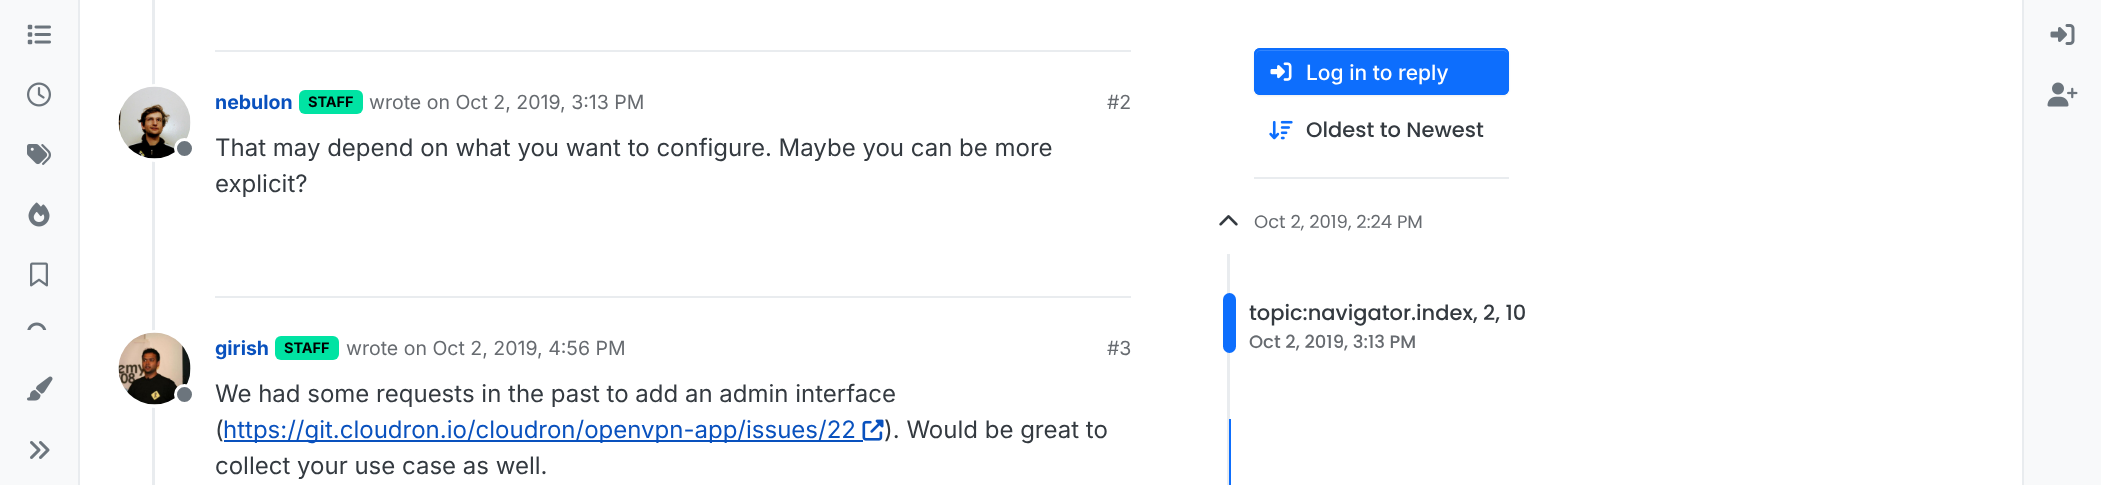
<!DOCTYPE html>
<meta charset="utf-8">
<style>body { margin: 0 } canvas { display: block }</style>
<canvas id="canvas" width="2101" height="485"></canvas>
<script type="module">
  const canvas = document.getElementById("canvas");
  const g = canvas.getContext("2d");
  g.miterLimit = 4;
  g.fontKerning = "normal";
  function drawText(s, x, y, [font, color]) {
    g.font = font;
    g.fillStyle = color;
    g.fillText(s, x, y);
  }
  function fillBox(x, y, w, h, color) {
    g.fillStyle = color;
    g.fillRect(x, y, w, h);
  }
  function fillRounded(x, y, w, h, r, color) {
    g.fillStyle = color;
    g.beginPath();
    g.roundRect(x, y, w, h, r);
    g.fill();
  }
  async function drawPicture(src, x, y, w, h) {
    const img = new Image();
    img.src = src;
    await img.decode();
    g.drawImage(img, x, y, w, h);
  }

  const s1 = ["bold 19.5px Inter", "#0951BE"];
  const s2 = ["bold 14.5px Inter", "#000000"];
  const s3 = ["19.5px Inter", "#676B70"];
  const s4 = ["24px Inter", "#343A40"];
  const s5 = ["24px Inter", "#0951BE"];
  const s6 = ["500 21px Inter", "#FFFFFF"];
  const s7 = ["500 21px Poppins", "#343A40"];
  const s8 = ["18px Poppins", "#676B70"];
  const s9 = ["500 18px Poppins", "#676B70"];

  fillBox(0, 0, 2101, 485, "#FFFFFF");
  fillBox(0, 0, 78, 485, "#F8F9FA");
  fillBox(78, 0, 2, 485, "#E9ECEF");
  await drawPicture("pic1.png", 27, 24, 24, 21);
  await drawPicture("pic2.png", 27, 82, 24, 25);
  await drawPicture("pic3.png", 27, 144, 24, 21);
  await drawPicture("pic4.png", 28, 202, 22, 25);
  await drawPicture("pic5.png", 30, 262, 18, 25);
  await drawPicture("pic6.png", 27, 322, 20, 8);
  await drawPicture("pic7.png", 27, 376, 26, 25);
  await drawPicture("pic8.png", 30, 441, 20, 18);
  fillBox(152, 0, 3, 485, "#E9ECEF");
  fillBox(215, 50, 916, 2, "#E9ECEF");
  g.fillStyle = "#FFFFFF";
  g.beginPath();
  g.arc(155, 123, 37.5, 0, Math.PI * 2);
  g.fill();
  g.strokeStyle = "#FFFFFF";
  g.lineWidth = 3;
  g.stroke();
  await drawPicture("pic9.png", 118, 86, 73, 73);
  g.fillStyle = "#6C757D";
  g.beginPath();
  g.arc(184.5, 148.5, 9, 0, Math.PI * 2);
  g.fill();
  g.stroke();
  drawText("nebulon", 215, 109, s1);
  fillRounded(299, 90, 64, 24, 6, "#00E3A3");
  drawText("STAFF", 308, 107, s2);
  drawText("wrote on Oct 2, 2019, 3:13 PM", 369, 109, s3);
  drawText("#2", 1107, 109, s3);
  drawText("That may depend on what you want to configure. Maybe you can be more", 215, 156, s4);
  drawText("explicit?", 215, 192, s4);
  fillBox(215, 296, 916, 2, "#E9ECEF");
  g.fillStyle = "#FFFFFF";
  g.beginPath();
  g.arc(155, 369, 37.5, 0, Math.PI * 2);
  g.fill();
  g.stroke();
  await drawPicture("pic10.png", 118, 332, 73, 73);
  g.fillStyle = "#6C757D";
  g.beginPath();
  g.arc(184.5, 394.5, 9, 0, Math.PI * 2);
  g.fill();
  g.stroke();
  drawText("girish", 215, 355, s1);
  fillRounded(275, 336, 64, 24, 6, "#00E3A3");
  drawText("STAFF", 284, 353, s2);
  drawText("wrote on Oct 2, 2019, 4:56 PM", 346, 355, s3);
  drawText("#3", 1107, 355, s3);
  drawText("We had some requests in the past to add an admin interface", 215, 402, s4);
  drawText("(", 215, 438, s4);
  fillBox(224, 440, 639, 2, "#0951BE");
  drawText("https://git.cloudron.io/cloudron/openvpn-app/issues/22", 223, 438, s5);
  await drawPicture("pic11.png", 862, 419, 22, 22);
  drawText("). Would be great to", 884, 438, s4);
  drawText("collect your use case as well.", 215, 474, s4);
  g.fillStyle = "rgba(0, 0, 0, 0.07)";
  g.filter = "blur(1px)";
  g.beginPath();
  g.roundRect(1254, 50, 255, 46, 6);
  g.fill();
  g.filter = "none";
  fillRounded(1254, 48, 255, 47, 6, "#0D6EFD");
  g.fillStyle = "#3184FD";
  g.beginPath();
  g.moveTo(1260, 51);
  g.lineTo(1503, 51);
  g.bezierCurveTo(1505, 51, 1508, 53, 1508, 56);
  g.lineTo(1508, 55);
  g.bezierCurveTo(1508, 52, 1506, 50, 1503, 50);
  g.lineTo(1261, 50);
  g.bezierCurveTo(1258, 50, 1256, 52, 1256, 55);
  g.lineTo(1256, 56);
  g.bezierCurveTo(1256, 53, 1258, 51, 1260, 51);
  g.closePath();
  g.fill();
  g.beginPath();
  g.roundRect(1255, 49, 253, 45, 5);
  g.strokeStyle = "#0D6EFD";
  g.lineWidth = 2;
  g.stroke();
  await drawPicture("pic12.png", 1270, 62, 22, 19);
  drawText("Log in to reply", 1306, 80, s6);
  await drawPicture("pic13.png", 1269, 120, 24, 20);
  drawText("Oldest to Newest", 1306, 137, s7);
  fillBox(1254, 177, 255, 2, "#E9ECEF");
  await drawPicture("pic14.png", 1219, 215, 19, 11);
  drawText("Oct 2, 2019, 2:24 PM", 1254, 228, s8);
  fillBox(1227, 254, 3, 231, "#E9ECEF");
  fillRounded(1223, 293, 13, 60, 6.5, "#0D6EFD");
  drawText("topic:navigator.index, 2, 10", 1249, 320, s7);
  drawText("Oct 2, 2019, 3:13 PM", 1249, 348, s9);
  fillBox(1229, 419, 2, 66, "#0D6EFD");
  fillBox(2024, 0, 77, 485, "#F8F9FA");
  fillBox(2022, 0, 2, 485, "#E9ECEF");
  await drawPicture("pic15.png", 2050, 24, 25, 21);
  await drawPicture("pic16.png", 2047, 82, 31, 25);
</script>
